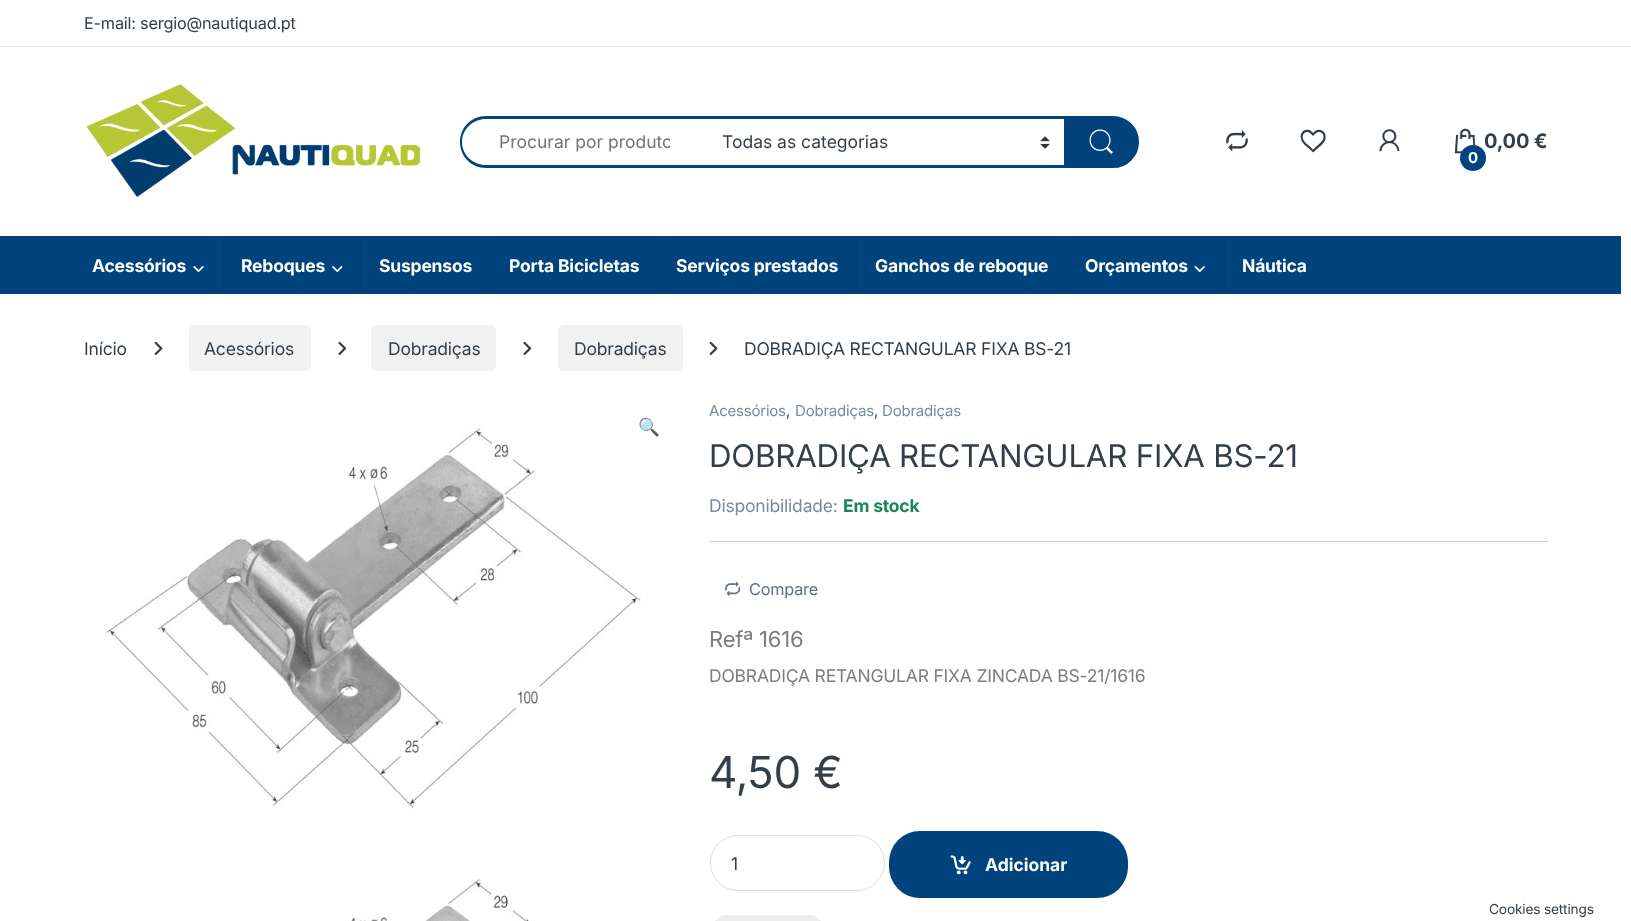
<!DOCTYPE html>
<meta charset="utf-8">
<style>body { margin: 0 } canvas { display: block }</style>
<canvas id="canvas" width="1631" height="921"></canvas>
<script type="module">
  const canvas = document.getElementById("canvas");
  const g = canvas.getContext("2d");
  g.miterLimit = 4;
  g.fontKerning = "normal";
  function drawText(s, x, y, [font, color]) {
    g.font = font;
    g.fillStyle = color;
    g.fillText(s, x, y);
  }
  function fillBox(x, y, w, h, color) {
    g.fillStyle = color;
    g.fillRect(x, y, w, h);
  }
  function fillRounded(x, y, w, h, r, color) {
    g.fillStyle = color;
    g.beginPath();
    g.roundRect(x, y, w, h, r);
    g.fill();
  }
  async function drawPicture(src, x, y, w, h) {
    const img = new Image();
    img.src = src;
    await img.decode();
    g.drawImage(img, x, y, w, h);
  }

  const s1 = ["16.25px Inter", "#333E48"];
  const s2 = ["17.5px Inter", "#6C757D"];
  const s3 = ["17.5px Inter", "#333E48"];
  const s4 = ["bold 20px Inter", "#333E48"];
  const s5 = ["bold 15px Inter", "#FFFFFF"];
  const s6 = ["bold 17.5px Inter", "#FFFFFF"];
  const s7 = ["17.5px Noto Color Emoji", "#333E48"];
  const s8 = ["15px Inter", "#768B9E"];
  const s9 = ["15px Inter", "#333E48"];
  const s10 = ["31.25px Inter", "#333E48"];
  const s11 = ["17.5px Inter", "#768B9E"];
  const s12 = ["bold 17.5px Inter", "#198754"];
  const s13 = ["16.25px Inter", "#5D7184"];
  const s14 = ["22px Inter", "#7D7D7D"];
  const s15 = ["17.5px Inter", "#7D7D7D"];
  const s16 = ["44px Inter", "#333E48"];
  const s17 = ["13.75px Inter", "#333E48"];

  fillBox(0, 0, 1631, 921, "#FFFFFF");
  fillBox(0, 46, 1631, 1, "#DDDDDD");
  g.letterSpacing = "-0.2px";
  drawText("E-mail: sergio@nautiquad.pt", 84, 29, s1);
  await drawPicture("pic1.png", 86, 84, 335, 114);
  g.fillStyle = "#01437C";
  g.beginPath();
  g.moveTo(486, 116);
  g.lineTo(708, 116);
  g.lineTo(708, 168);
  g.lineTo(486, 168);
  g.bezierCurveTo(471, 168, 460, 156, 460, 142);
  g.bezierCurveTo(460, 128, 471, 116, 486, 116);
  g.closePath();
  g.moveTo(486, 119);
  g.lineTo(708, 119);
  g.lineTo(708, 165);
  g.lineTo(486, 165);
  g.bezierCurveTo(473, 165, 462, 155, 462, 142);
  g.bezierCurveTo(462, 129, 473, 119, 486, 119);
  g.closePath();
  g.fill("evenodd");
  g.save();
  g.beginPath();
  g.rect(499, 131, 171, 22);
  g.clip();
  g.letterSpacing = "0px";
  drawText("Procurar por produto", 499, 148, s2);
  g.restore();
  fillBox(706, 116, 359, 3, "#01437C");
  fillBox(706, 165, 359, 3, "#01437C");
  await drawPicture("pic2.png", 1040, 136, 10, 13);
  g.letterSpacing = "0px";
  drawText("Todas as categorias", 722, 148, s3);
  g.fillStyle = "#01437C";
  g.beginPath();
  g.roundRect(1065.5, 117.5, 72, 49, [0, 24.5, 24.5, 0]);
  g.fill();
  g.strokeStyle = "#01437C";
  g.lineWidth = 3;
  g.stroke();
  await drawPicture("pic3.png", 1089, 129, 24, 25);
  await drawPicture("pic4.png", 1226, 130, 22, 22);
  await drawPicture("pic5.png", 1300, 129, 26, 24);
  await drawPicture("pic6.png", 1379, 129, 21, 23);
  await drawPicture("pic7.png", 1454, 128, 22, 26);
  g.letterSpacing = "-0.2px";
  drawText("0,00 €", 1484, 148, s4);
  g.fillStyle = "#01437C";
  g.beginPath();
  g.arc(1473, 158, 13, 0, Math.PI * 2);
  g.fill();
  drawText("0", 1468, 163, s5);
  fillBox(0, 236, 1621, 58, "#01437C");
  drawText("Acessórios", 92, 272, s6);
  await drawPicture("pic8.png", 193, 266, 11, 6);
  fillBox(223, 236, 1, 58, "#013E72");
  drawText("Reboques", 241, 272, s6);
  await drawPicture("pic9.png", 332, 266, 11, 6);
  fillBox(360, 236, 1, 58, "#013E72");
  drawText("Suspensos", 379, 272, s6);
  fillBox(490, 236, 1, 58, "#013E72");
  drawText("Porta Bicicletas", 509, 272, s6);
  fillBox(658, 236, 1, 58, "#013E72");
  drawText("Serviços prestados", 676, 272, s6);
  fillBox(856, 236, 1, 58, "#013E72");
  drawText("Ganchos de reboque", 875, 272, s6);
  fillBox(1066, 236, 1, 58, "#013E72");
  drawText("Orçamentos", 1085, 272, s6);
  await drawPicture("pic10.png", 1194, 266, 11, 6);
  fillBox(1224, 236, 1, 58, "#013E72");
  drawText("Náutica", 1242, 272, s6);
  drawText("Início", 84, 355, s3);
  await drawPicture("pic11.png", 154, 341, 9, 14);
  fillRounded(189, 325, 122, 46, 6, "#F1F1F1");
  drawText("Acessórios", 204, 355, s3);
  await drawPicture("pic12.png", 338, 341, 9, 14);
  fillRounded(371, 325, 125, 46, 6, "#F1F1F1");
  drawText("Dobradiças", 388, 355, s3);
  await drawPicture("pic12.png", 523, 341, 9, 14);
  fillRounded(558, 325, 125, 46, 6, "#F1F1F1");
  drawText("Dobradiças", 574, 355, s3);
  await drawPicture("pic11.png", 709, 341, 9, 14);
  drawText("DOBRADIÇA RECTANGULAR FIXA BS-21", 744, 355, s3);
  await drawPicture("pic13.png", 104, 424, 538, 386);
  drawText("🔍", 638, 433, s7);
  await drawPicture("pic14.png", 351, 875, 178, 46);
  drawText("Acessórios", 709, 416, s8);
  drawText(",", 786, 416, s9);
  drawText("Dobradiças", 795, 416, s8);
  drawText(",", 874, 416, s9);
  drawText("Dobradiças", 882, 416, s8);
  drawText("DOBRADIÇA RECTANGULAR FIXA BS-21", 709, 467, s10);
  drawText("Disponibilidade:", 709, 512, s11);
  drawText("Em stock", 843, 512, s12);
  fillBox(710, 541, 838, 1, "#CCCFD1");
  await drawPicture("pic15.png", 725, 581, 16, 16);
  drawText("Compare", 749, 595, s13);
  drawText("Refª 1616", 709, 647, s14);
  drawText("DOBRADIÇA RETANGULAR FIXA ZINCADA BS-21/1616", 709, 682, s15);
  drawText("4,50 €", 709, 788, s16);
  g.beginPath();
  g.roundRect(710.5, 835.5, 174, 55, 27.5);
  g.strokeStyle = "#DDDDDD";
  g.lineWidth = 1;
  g.stroke();
  g.letterSpacing = "0px";
  drawText("1", 731, 870, s3);
  fillRounded(889, 831, 239, 67, 31, "#01437C");
  await drawPicture("pic16.png", 950, 855, 21, 20);
  drawText("Adicionar", 985, 871, s6);
  g.fillStyle = "#EFECEC";
  g.beginPath();
  g.roundRect(710.5, 915.5, 115, 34, 27.5);
  g.fill();
  g.strokeStyle = "#EFECEC";
  g.stroke();
  g.letterSpacing = "-0.2px";
  drawText("Cookies settings", 1489, 914, s17);
</script>
